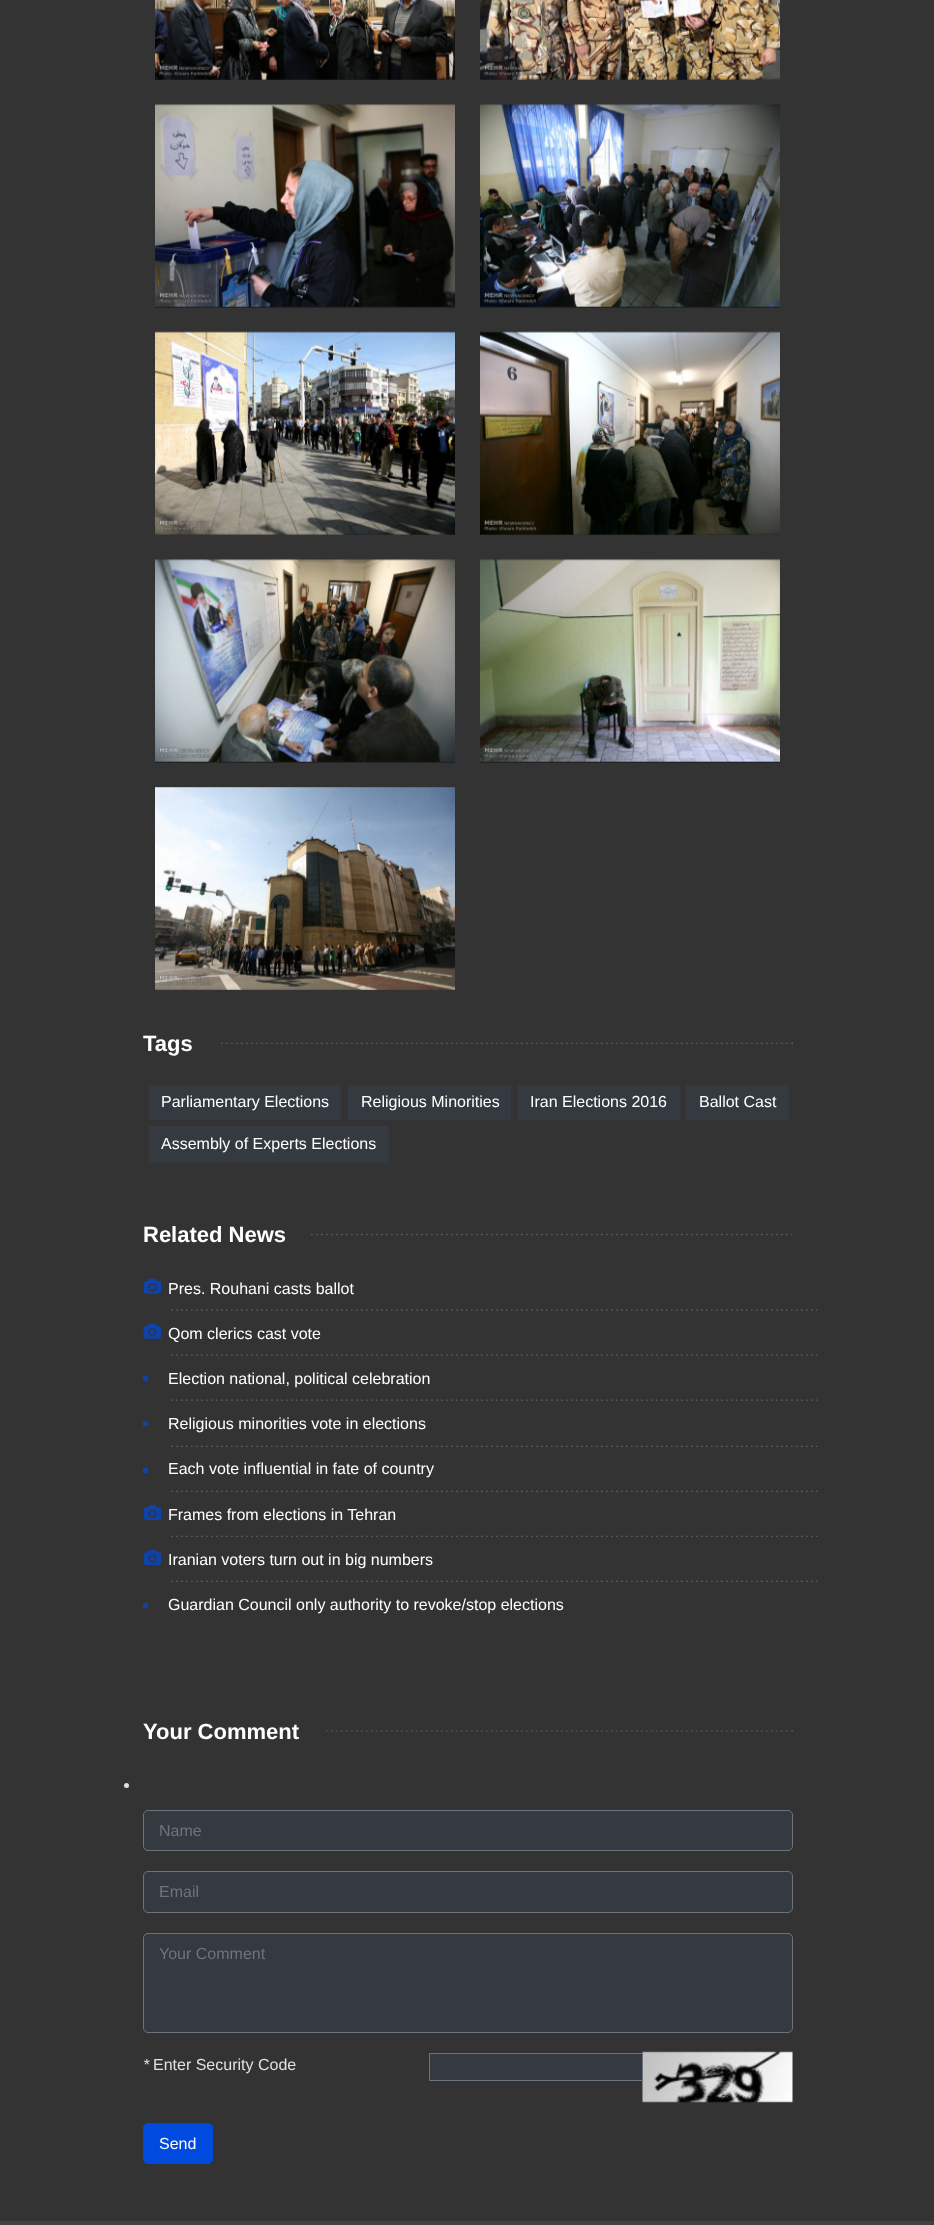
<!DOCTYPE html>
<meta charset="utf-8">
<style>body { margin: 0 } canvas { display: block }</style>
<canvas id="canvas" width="934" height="2225"></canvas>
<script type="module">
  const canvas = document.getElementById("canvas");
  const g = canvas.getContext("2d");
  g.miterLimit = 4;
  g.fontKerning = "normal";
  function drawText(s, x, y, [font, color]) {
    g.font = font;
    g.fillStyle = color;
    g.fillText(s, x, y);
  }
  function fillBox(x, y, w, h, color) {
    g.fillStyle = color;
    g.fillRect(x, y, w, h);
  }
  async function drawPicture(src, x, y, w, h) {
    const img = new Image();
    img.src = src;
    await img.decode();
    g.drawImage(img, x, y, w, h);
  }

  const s1 = ["bold 22px Liberation Sans", "#FFFFFF"];
  const s2 = ["16px Liberation Sans", "#FFFFFF"];
  const s3 = ["16px Liberation Sans", "#6C757D"];
  const s4 = ["italic 16px Liberation Sans", "#DEE2E6"];
  const s5 = ["16px Liberation Sans", "#DEE2E6"];

  fillBox(0, 0, 934, 2225, "#333333");
  fillBox(155, 78, 300, 2, "#232323");
  await drawPicture("pic1.png", 155, 0, 300, 80);
  fillBox(480, 78, 300, 2, "#232323");
  await drawPicture("pic2.png", 480, 0, 300, 80);
  fillBox(155, 105, 300, 203, "#232323");
  await drawPicture("pic3.png", 155, 104, 300, 203);
  fillBox(480, 105, 300, 203, "#232323");
  await drawPicture("pic4.png", 480, 104, 300, 203);
  fillBox(155, 533, 300, 2, "#232323");
  await drawPicture("pic5.png", 155, 331, 300, 204);
  fillBox(480, 533, 300, 2, "#232323");
  await drawPicture("pic6.png", 480, 331, 300, 204);
  fillBox(155, 560, 300, 203, "#232323");
  await drawPicture("pic7.png", 155, 559, 300, 203);
  fillBox(480, 560, 300, 203, "#232323");
  await drawPicture("pic8.png", 480, 559, 300, 203);
  await drawPicture("pic9.png", 155, 787, 300, 203);
  drawText("Tags", 143, 1051, s1);
  await drawPicture("pic10.png", 218, 1042, 575, 3);
  fillBox(149, 1085, 192, 35, "#343A40");
  drawText("Parliamentary Elections", 161, 1107, s2);
  fillBox(348, 1085, 163, 35, "#343A40");
  drawText("Religious Minorities", 361, 1107, s2);
  fillBox(518, 1085, 162, 35, "#343A40");
  drawText("Iran Elections 2016", 530, 1107, s2);
  fillBox(686, 1085, 103, 35, "#343A40");
  drawText("Ballot Cast", 699, 1107, s2);
  fillBox(149, 1126, 240, 37, "#343A40");
  drawText("Assembly of Experts Elections", 161, 1149, s2);
  await drawPicture("pic11.png", 142, 1233, 651, 3);
  fillBox(146, 1233, 162, 3, "#333333");
  drawText("Related News", 143, 1242, s1);
  await drawPicture("pic12.png", 143, 1278, 19, 16);
  drawText("Pres. Rouhani casts ballot", 168, 1294, s2);
  await drawPicture("pic13.png", 167, 1309, 651, 2);
  await drawPicture("pic12.png", 143, 1323, 19, 16);
  drawText("Qom clerics cast vote", 168, 1339, s2);
  await drawPicture("pic13.png", 167, 1354, 651, 2);
  fillBox(143, 1376, 5, 5, "#0F43AB");
  drawText("Election national, political celebration", 168, 1384, s2);
  await drawPicture("pic13.png", 167, 1399, 651, 2);
  fillBox(143, 1421, 5, 5, "#0F43AB");
  drawText("Religious minorities vote in elections", 168, 1429, s2);
  await drawPicture("pic14.png", 167, 1445, 651, 2);
  fillBox(143, 1468, 5, 5, "#0F43AB");
  drawText("Each vote influential in fate of country", 168, 1474, s2);
  await drawPicture("pic14.png", 167, 1490, 651, 2);
  await drawPicture("pic15.png", 143, 1504, 19, 17);
  drawText("Frames from elections in Tehran", 168, 1520, s2);
  await drawPicture("pic14.png", 167, 1535, 651, 2);
  await drawPicture("pic15.png", 143, 1549, 19, 17);
  drawText("Iranian voters turn out in big numbers", 168, 1565, s2);
  await drawPicture("pic14.png", 167, 1580, 651, 2);
  fillBox(143, 1603, 5, 5, "#0F43AB");
  drawText("Guardian Council only authority to revoke/stop elections", 168, 1610, s2);
  drawText("Your Comment", 143, 1739, s1);
  await drawPicture("pic16.png", 325, 1730, 468, 2);
  g.fillStyle = "#DEE2E6";
  g.beginPath();
  g.arc(126.5, 1785.5, 2.5, 0, Math.PI * 2);
  g.fill();
  g.fillStyle = "#343A40";
  g.beginPath();
  g.roundRect(143.5, 1810.5, 649, 40, 4.5);
  g.fill();
  g.strokeStyle = "#6C757D";
  g.stroke();
  drawText("Name", 159, 1836, s3);
  g.fillStyle = "#343A40";
  g.beginPath();
  g.roundRect(143.5, 1871.5, 649, 41, 4.5);
  g.fill();
  g.stroke();
  drawText("Email", 159, 1897, s3);
  g.fillStyle = "#343A40";
  g.beginPath();
  g.roundRect(143.5, 1933.5, 649, 99, 4.5);
  g.fill();
  g.stroke();
  drawText("Your Comment", 159, 1959, s3);
  drawText("*", 143, 2070, s4);
  drawText("Enter Security Code", 153, 2070, s5);
  await drawPicture("pic17.png", 642, 2051, 151, 52);
  g.fillStyle = "#343A40";
  g.beginPath();
  g.rect(429.5, 2053.5, 213, 27);
  g.fill();
  g.stroke();
  g.fillStyle = "#004ADF";
  g.beginPath();
  g.roundRect(143.5, 2123.5, 69, 40, 4.5);
  g.fill();
  g.strokeStyle = "#004ADF";
  g.stroke();
  drawText("Send", 159, 2149, s2);
  fillBox(0, 2221, 934, 4, "#404040");
</script>
